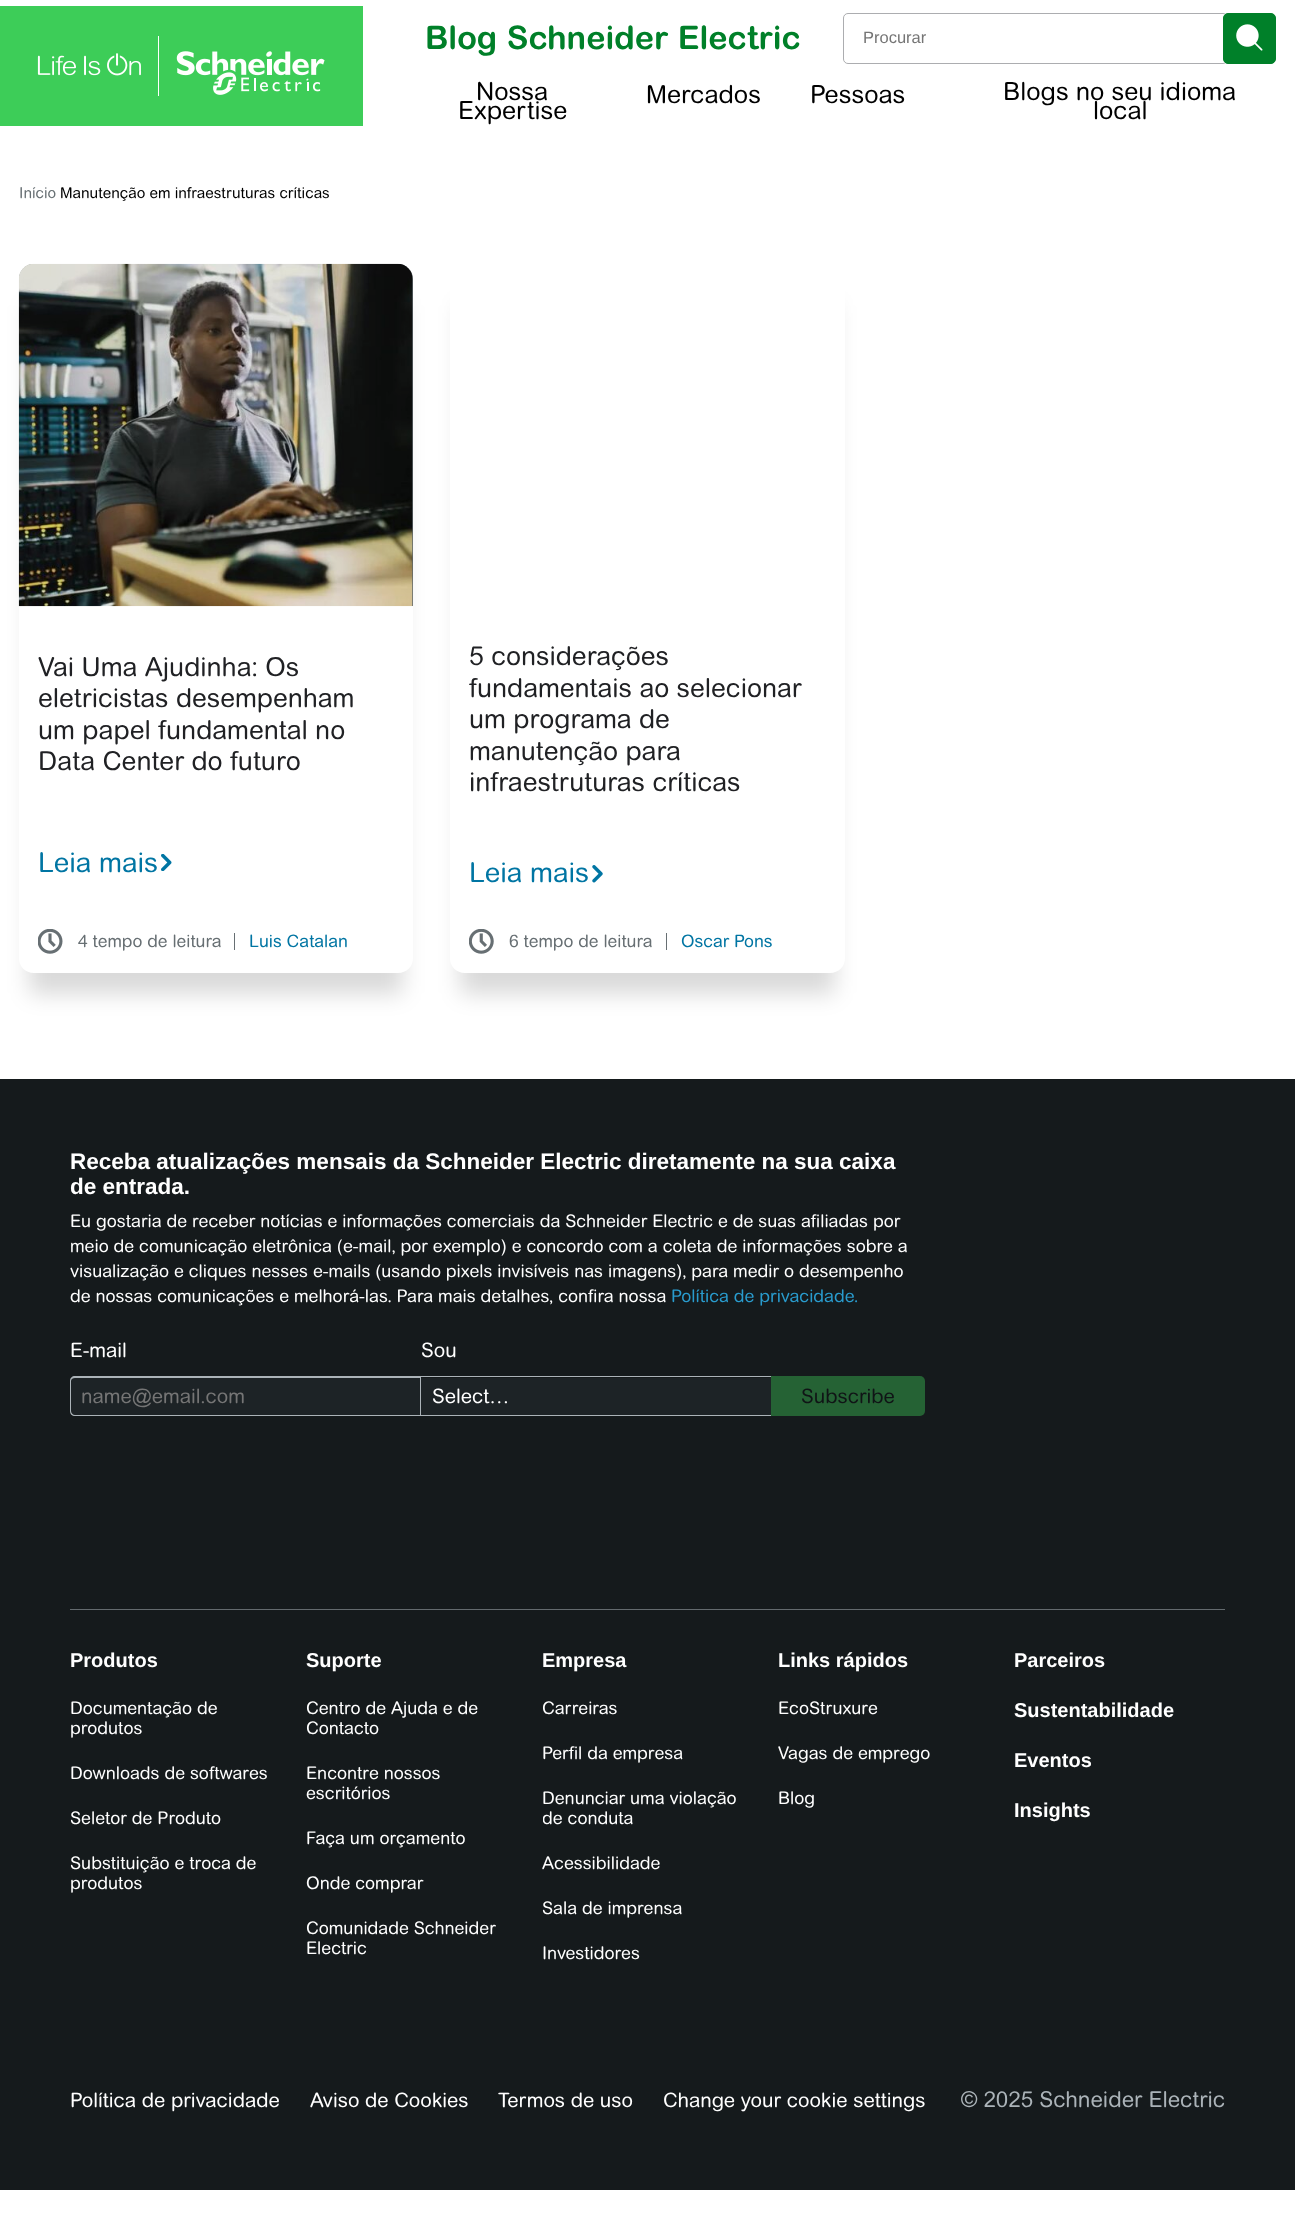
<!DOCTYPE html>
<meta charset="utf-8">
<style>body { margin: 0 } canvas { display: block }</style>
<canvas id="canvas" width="1295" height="2229"></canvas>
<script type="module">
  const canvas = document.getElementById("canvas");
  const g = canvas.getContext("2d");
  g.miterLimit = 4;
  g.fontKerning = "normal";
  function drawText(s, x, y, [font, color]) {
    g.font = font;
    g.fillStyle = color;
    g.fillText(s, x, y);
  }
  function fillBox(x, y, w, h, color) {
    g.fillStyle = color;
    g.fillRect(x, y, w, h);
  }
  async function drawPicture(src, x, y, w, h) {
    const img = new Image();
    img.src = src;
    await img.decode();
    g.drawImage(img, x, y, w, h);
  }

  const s1 = ["bold 32.5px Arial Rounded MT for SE", "#008029"];
  const s2 = ["16.5px Liberation Sans", "#757575"];
  const s3 = ["25px Arial Rounded MT for SE", "#000000"];
  const s4 = ["15px Arial Rounded MT for SE", "#676F73"];
  const s5 = ["15px Arial Rounded MT for SE", "#000000"];
  const s6 = ["26.25px Arial Rounded MT for SE", "#202124"];
  const s7 = ["27.5px Arial Rounded MT for SE", "#0075A3"];
  const s8 = ["17.25px Arial Rounded MT for SE", "#676F73"];
  const s9 = ["17.25px Arial Rounded MT for SE", "#0075A3"];
  const s10 = ["bold 22.5px Liberation Sans", "#FFFFFF"];
  const s11 = ["17.5px 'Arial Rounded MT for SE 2'", "#FFFFFF"];
  const s12 = ["17.5px 'Arial Rounded MT for SE 2'", "#299BCD"];
  const s13 = ["20px 'Arial Rounded MT for SE 2'", "#FFFFFF"];
  const s14 = ["20px 'Arial Rounded MT for SE 2'", "#757575"];
  const s15 = ["20px 'Arial Rounded MT for SE 2'", "#101416"];
  const s16 = ["bold 20px Liberation Sans", "#FFFFFF"];
  const s17 = ["22px 'Arial Rounded MT for SE 2'", "#ABB3B8"];

  fillBox(0, 0, 1295, 2229, "#FFFFFF");
  fillBox(0, 6, 363, 120, "#3DCD58");
  await drawPicture("pic1.png", 37, 36, 288, 60);
  drawText("Blog Schneider Electric", 425, 49, s1);
  g.beginPath();
  g.roundRect(843.5, 13.5, 384, 50, 4.5);
  g.strokeStyle = "#ACADB0";
  g.stroke();
  drawText("Procurar", 863, 43, s2);
  g.fillStyle = "#008029";
  g.beginPath();
  g.roundRect(1223.5, 13.5, 52, 50, 4.5);
  g.fill();
  g.strokeStyle = "#008029";
  g.stroke();
  await drawPicture("pic2.png", 1236, 24, 27, 27);
  drawText("Nossa", 476, 100, s3);
  drawText("Expertise", 458, 119, s3);
  drawText("Mercados", 646, 103, s3);
  drawText("Pessoas", 810, 103, s3);
  drawText("Blogs no seu idioma", 1003, 100, s3);
  drawText("local", 1093, 119, s3);
  drawText("Início", 19, 198, s4);
  drawText("Manutenção em infraestruturas críticas", 60, 198, s5);
  g.save();
  g.beginPath();
  g.moveTo(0, 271);
  g.lineTo(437, 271);
  g.lineTo(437, 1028);
  g.lineTo(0, 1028);
  g.closePath();
  g.moveTo(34, 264);
  g.lineTo(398, 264);
  g.bezierCurveTo(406.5, 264, 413, 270.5, 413, 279);
  g.lineTo(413, 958);
  g.bezierCurveTo(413, 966.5, 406.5, 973, 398, 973);
  g.lineTo(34, 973);
  g.bezierCurveTo(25.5, 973, 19, 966.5, 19, 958);
  g.lineTo(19, 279);
  g.bezierCurveTo(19, 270.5, 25.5, 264, 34, 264);
  g.closePath();
  g.clip("evenodd");
  g.fillStyle = "rgba(0, 0, 0, 0.15)";
  g.filter = "blur(11px)";
  g.beginPath();
  g.roundRect(29, 305, 374, 689, 5);
  g.fill();
  g.filter = "none";
  g.restore();
  g.fillStyle = "#5D6468";
  g.beginPath();
  g.roundRect(19, 264, 394, 342, [15, 15, 0, 0]);
  g.fill();
  await drawPicture("pic3.png", 18, 263, 395, 344);
  drawText("Vai Uma Ajudinha: Os", 38, 676, s6);
  drawText("eletricistas desempenham", 38, 707, s6);
  drawText("um papel fundamental no", 38, 739, s6);
  drawText("Data Center do futuro", 38, 770, s6);
  drawText("Leia mais", 38, 872, s7);
  await drawPicture("pic4.png", 161, 854, 11, 17);
  await drawPicture("pic5.png", 38, 929, 25, 25);
  drawText("4 tempo de leitura", 78, 947, s8);
  fillBox(234, 933, 1, 17, "#676F73");
  drawText("Luis Catalan", 249, 947, s9);
  g.save();
  g.beginPath();
  g.moveTo(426, 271);
  g.lineTo(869, 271);
  g.lineTo(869, 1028);
  g.lineTo(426, 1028);
  g.closePath();
  g.moveTo(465, 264);
  g.lineTo(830, 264);
  g.bezierCurveTo(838.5, 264, 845, 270.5, 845, 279);
  g.lineTo(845, 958);
  g.bezierCurveTo(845, 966.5, 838.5, 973, 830, 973);
  g.lineTo(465, 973);
  g.bezierCurveTo(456.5, 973, 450, 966.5, 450, 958);
  g.lineTo(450, 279);
  g.bezierCurveTo(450, 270.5, 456.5, 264, 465, 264);
  g.closePath();
  g.clip("evenodd");
  g.fillStyle = "rgba(0, 0, 0, 0.15)";
  g.filter = "blur(11px)";
  g.beginPath();
  g.roundRect(460, 305, 375, 689, 5);
  g.fill();
  g.filter = "none";
  g.restore();
  drawText("5 considerações", 469, 665, s6);
  drawText("fundamentais ao selecionar", 469, 697, s6);
  drawText("um programa de", 469, 728, s6);
  drawText("manutenção para", 469, 760, s6);
  drawText("infraestruturas críticas", 469, 791, s6);
  drawText("Leia mais", 469, 882, s7);
  await drawPicture("pic6.png", 592, 865, 11, 18);
  await drawPicture("pic7.png", 469, 929, 25, 25);
  drawText("6 tempo de leitura", 509, 947, s8);
  fillBox(666, 933, 1, 17, "#676F73");
  drawText("Oscar Pons", 681, 947, s9);
  fillBox(0, 1079, 1295, 1111, "#151A1C");
  drawText("Receba atualizações mensais da Schneider Electric diretamente na sua caixa", 70, 1169, s10);
  drawText("de entrada.", 70, 1194, s10);
  drawText("Eu gostaria de receber notícias e informações comerciais da Schneider Electric e de suas afiliadas por", 70, 1227, s11);
  drawText("meio de comunicação eletrônica (e-mail, por exemplo) e concordo com a coleta de informações sobre a", 70, 1252, s11);
  drawText("visualização e cliques nesses e-mails (usando pixels invisíveis nas imagens), para medir o desempenho", 70, 1277, s11);
  drawText("de nossas comunicações e melhorá-las. Para mais detalhes, confira nossa", 70, 1302, s11);
  drawText("Política de privacidade.", 671, 1302, s12);
  drawText("E-mail", 70, 1357, s13);
  g.fillStyle = "#1D2326";
  g.beginPath();
  g.roundRect(71, 1378, 349, 37, [4, 0, 0, 4]);
  g.fill();
  g.fillStyle = "#ABB3B8";
  g.beginPath();
  g.moveTo(75, 1376);
  g.lineTo(420, 1376);
  g.lineTo(420, 1416);
  g.lineTo(75, 1416);
  g.bezierCurveTo(72, 1416, 70, 1414, 70, 1411);
  g.lineTo(70, 1381);
  g.bezierCurveTo(70, 1378, 72, 1376, 75, 1376);
  g.closePath();
  g.moveTo(75, 1378);
  g.lineTo(420, 1378);
  g.lineTo(420, 1415);
  g.lineTo(75, 1415);
  g.bezierCurveTo(73, 1415, 71, 1413, 71, 1411);
  g.lineTo(71, 1381);
  g.bezierCurveTo(71, 1379, 73, 1378, 75, 1378);
  g.closePath();
  g.fill("evenodd");
  drawText("name@email.com", 81, 1403, s14);
  drawText("Sou", 421, 1357, s13);
  fillBox(421, 1378, 350, 37, "#1D2326");
  fillBox(420, 1376, 351, 1, "#ABB3B8");
  fillBox(420, 1415, 351, 1, "#ABB3B8");
  fillBox(420, 1376, 1, 40, "#ABB3B8");
  drawText("Select…", 432, 1403, s13);
  g.fillStyle = "#256234";
  g.beginPath();
  g.roundRect(771, 1376, 154, 40, [0, 5, 5, 0]);
  g.fill();
  drawText("Subscribe", 801, 1403, s15);
  fillBox(70, 1609, 1155, 1, "#636A6E");
  drawText("Produtos", 70, 1667, s16);
  drawText("Documentação de", 70, 1714, s11);
  drawText("produtos", 70, 1734, s11);
  drawText("Downloads de softwares", 70, 1779, s11);
  drawText("Seletor de Produto", 70, 1824, s11);
  drawText("Substituição e troca de", 70, 1869, s11);
  drawText("produtos", 70, 1889, s11);
  drawText("Suporte", 306, 1667, s16);
  drawText("Centro de Ajuda e de", 306, 1714, s11);
  drawText("Contacto", 306, 1734, s11);
  drawText("Encontre nossos", 306, 1779, s11);
  drawText("escritórios", 306, 1799, s11);
  drawText("Faça um orçamento", 306, 1844, s11);
  drawText("Onde comprar", 306, 1889, s11);
  drawText("Comunidade Schneider", 306, 1934, s11);
  drawText("Electric", 306, 1954, s11);
  drawText("Empresa", 542, 1667, s16);
  drawText("Carreiras", 542, 1714, s11);
  drawText("Perfil da empresa", 542, 1759, s11);
  drawText("Denunciar uma violação", 542, 1804, s11);
  g.save();
  g.beginPath();
  g.rect(543, 1788, 210, 40);
  g.clip();
  drawText("de conduta", 542, 1824, s11);
  g.restore();
  drawText("Acessibilidade", 542, 1869, s11);
  drawText("Sala de imprensa", 542, 1914, s11);
  drawText("Investidores", 542, 1959, s11);
  drawText("Links rápidos", 778, 1667, s16);
  drawText("EcoStruxure", 778, 1714, s11);
  drawText("Vagas de emprego", 778, 1759, s11);
  drawText("Blog", 778, 1804, s11);
  drawText("Parceiros", 1014, 1667, s16);
  drawText("Sustentabilidade", 1014, 1717, s16);
  drawText("Eventos", 1014, 1767, s16);
  drawText("Insights", 1014, 1817, s16);
  drawText("Política de privacidade", 70, 2107, s13);
  drawText("Aviso de Cookies", 310, 2107, s13);
  drawText("Termos de uso", 498, 2107, s13);
  drawText("Change your cookie settings", 663, 2107, s13);
  drawText("© 2025 Schneider Electric", 961, 2107, s17);
</script>
